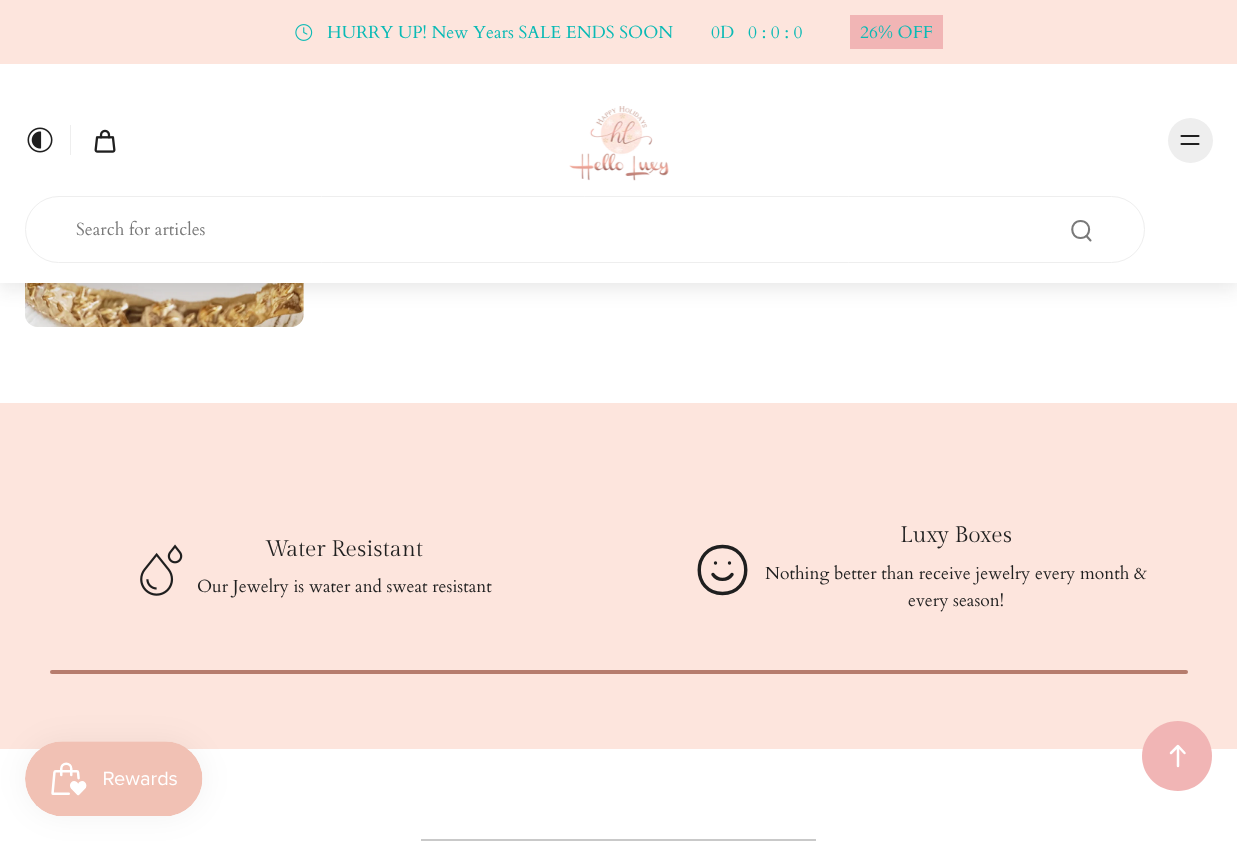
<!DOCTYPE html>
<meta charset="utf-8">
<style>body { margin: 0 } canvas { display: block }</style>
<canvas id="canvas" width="1237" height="841"></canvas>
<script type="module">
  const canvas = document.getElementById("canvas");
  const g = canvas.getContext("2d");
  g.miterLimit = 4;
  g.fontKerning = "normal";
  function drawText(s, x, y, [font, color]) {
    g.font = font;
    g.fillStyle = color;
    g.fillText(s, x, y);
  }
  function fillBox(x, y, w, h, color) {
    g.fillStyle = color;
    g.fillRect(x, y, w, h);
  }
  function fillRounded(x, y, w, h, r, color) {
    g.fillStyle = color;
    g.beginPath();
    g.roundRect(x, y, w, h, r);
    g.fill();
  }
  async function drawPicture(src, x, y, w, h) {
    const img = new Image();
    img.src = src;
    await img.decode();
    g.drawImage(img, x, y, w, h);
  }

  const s1 = ["17.5px Cardo", "#0ABAB5"];
  const s2 = ["17.5px Cardo", "#797979"];
  const s3 = ["22.5px Gilda Display", "#1F1F1F"];
  const s4 = ["17.5px Cardo", "#1F1F1F"];

  fillBox(0, 0, 1237, 841, "#FFFFFF");
  await drawPicture("pic5.png", 25, 283, 279, 44);
  g.fillStyle = "rgba(31, 31, 31, 0.1)";
  g.filter = "blur(9.5px)";
  g.beginPath();
  g.rect(0, 70, 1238, 219);
  g.fill();
  g.filter = "none";
  fillBox(0, 0, 1237, 64, "#FDE5DD");
  await drawPicture("pic1.png", 295, 24, 18, 17);
  drawText("HURRY UP! New Years SALE ENDS SOON", 327, 38, s1);
  drawText("0D", 711, 38, s1);
  drawText("0 : 0 : 0", 748, 38, s1);
  fillBox(850, 15, 93, 34, "#F1B5B5");
  drawText("26% OFF", 860, 38, s1);
  fillBox(0, 64, 1237, 219, "#FFFFFF");
  fillBox(70, 125, 1, 30, "#EEEEEE");
  await drawPicture("pic2.png", 27, 127, 26, 26);
  await drawPicture("pic3.png", 94, 129, 22, 24);
  await drawPicture("pic4.png", 569, 106, 100, 75);
  g.beginPath();
  g.arc(1190.5, 140.5, 22.5, 0, Math.PI * 2);
  g.fill();
  g.beginPath();
  g.moveTo(1181.5, 136);
  g.lineTo(1198.5, 136);
  g.moveTo(1181.5, 144);
  g.lineTo(1198.5, 144);
  g.strokeStyle = "#1F1F1F";
  g.lineWidth = 2.1;
  g.lineCap = "round";
  g.stroke();
  g.beginPath();
  g.roundRect(25.5, 196.5, 1119, 66, 33);
  g.strokeStyle = "#EEEEEE";
  g.lineWidth = 1;
  g.stroke();
  drawText("Search for articles", 76, 235, s2);
  g.beginPath();
  g.moveTo(1080.5, 238);
  g.bezierCurveTo(1092, 238, 1092, 221, 1080.5, 221);
  g.bezierCurveTo(1069.5, 221, 1069.5, 238, 1080.5, 238);
  g.closePath();
  g.strokeStyle = "#797979";
  g.lineWidth = 2.1;
  g.lineCap = "butt";
  g.stroke();
  g.beginPath();
  g.moveTo(1086.5, 236);
  g.lineTo(1090.5, 240.5);
  g.lineCap = "round";
  g.stroke();
  fillBox(0, 403, 1237, 346, "#FDE5DD");
  await drawPicture("pic6.png", 140, 544, 43, 52);
  drawText("Water Resistant", 265, 556, s3);
  drawText("Our Jewelry is water and sweat resistant", 197, 592, s4);
  g.beginPath();
  g.moveTo(722.5, 593.5);
  g.bezierCurveTo(753.5, 593.5, 753.5, 546.5, 722.5, 546.5);
  g.bezierCurveTo(691.5, 546.5, 691.5, 593.5, 722.5, 593.5);
  g.closePath();
  g.moveTo(713, 574.5);
  g.bezierCurveTo(717.5, 581, 727.5, 581, 732, 574.5);
  g.moveTo(715.5, 563);
  g.lineTo(715.5, 563);
  g.moveTo(729.5, 563);
  g.lineTo(729.5, 563);
  g.strokeStyle = "#1F1F1F";
  g.lineWidth = 3.4;
  g.lineJoin = "round";
  g.stroke();
  drawText("Luxy Boxes", 900, 542, s3);
  drawText("Nothing better than receive jewelry every month &", 765, 579, s4);
  drawText("every season!", 908, 606, s4);
  fillRounded(50, 670, 1138, 4, 2, "#B67C6D");
  fillBox(421, 839, 395, 2, "#C9C9C9");
  g.fillStyle = "#F1B5B5";
  g.beginPath();
  g.moveTo(1142, 756);
  g.bezierCurveTo(1142, 737, 1158, 721, 1178, 721);
  g.bezierCurveTo(1197, 721, 1212, 737, 1212, 756);
  g.bezierCurveTo(1212, 776, 1197, 791, 1178, 791);
  g.bezierCurveTo(1158, 791, 1142, 776, 1142, 756);
  g.closePath();
  g.fill();
  g.beginPath();
  g.moveTo(1184.5, 753);
  g.lineTo(1178, 746);
  g.lineTo(1171, 753);
  g.moveTo(1178, 766);
  g.lineTo(1178, 747.5);
  g.strokeStyle = "#FFFFFF";
  g.lineWidth = 2.5;
  g.stroke();
  g.fillStyle = "rgba(0, 0, 0, 0.05)";
  g.filter = "blur(15.5px)";
  g.beginPath();
  g.roundRect(25, 741, 178, 75, 37.5);
  g.fill();
  g.filter = "none";
  await drawPicture("pic7.png", 25, 741, 178, 75);
</script>
